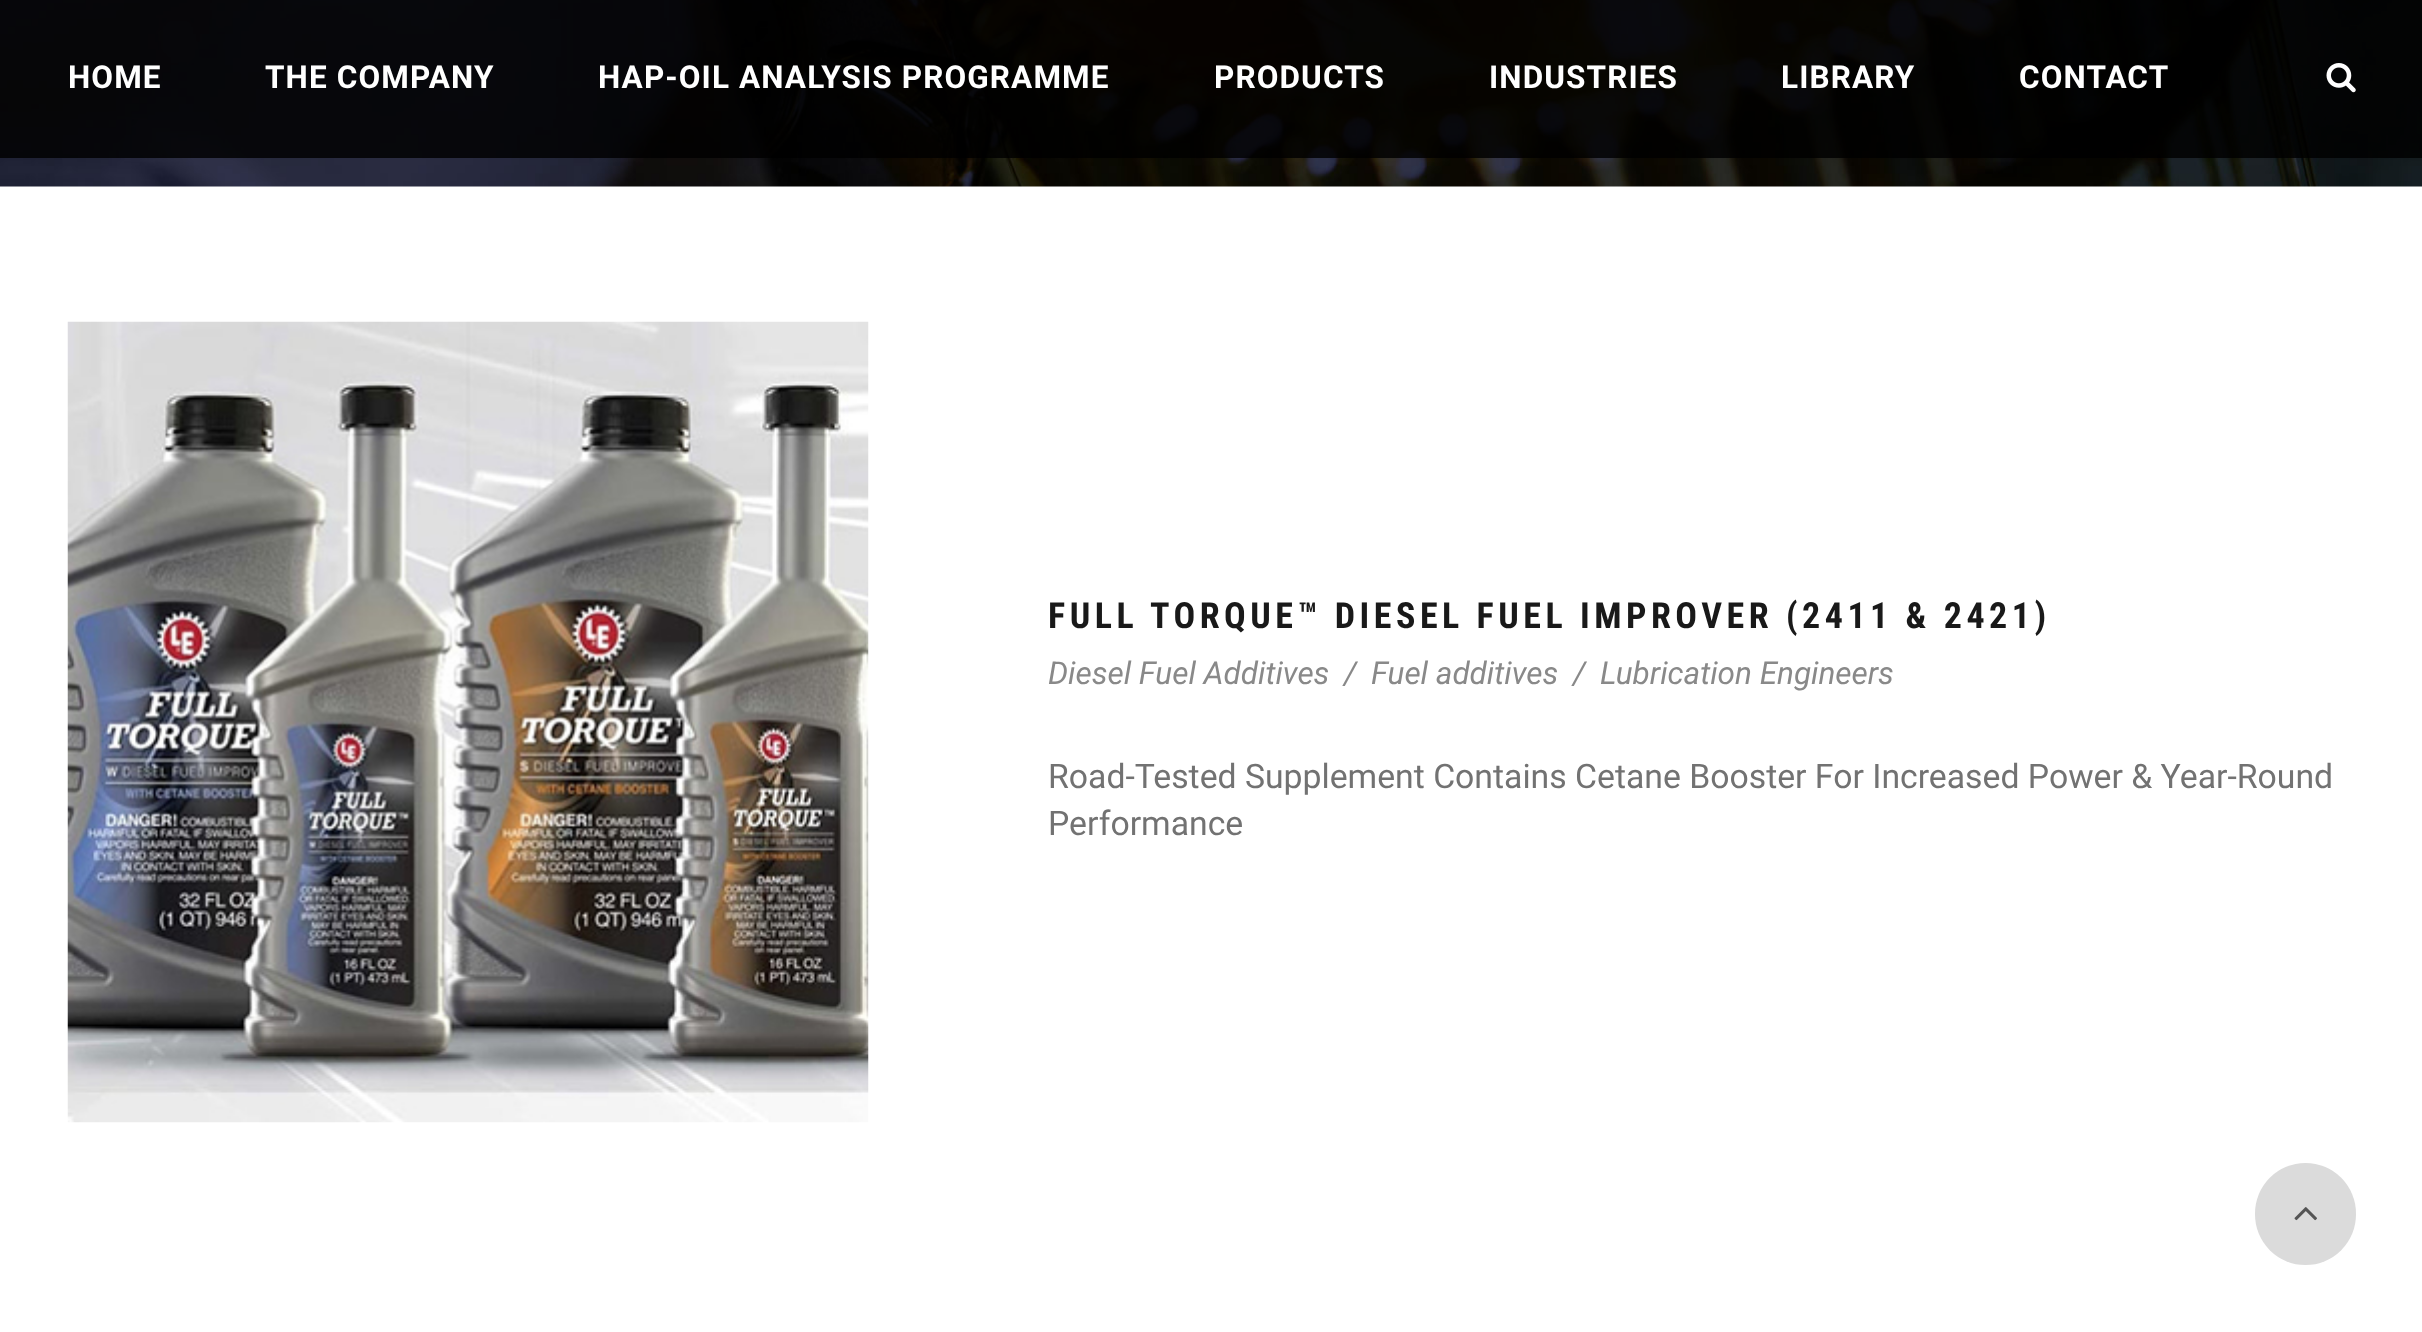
<!DOCTYPE html>
<meta charset="utf-8">
<style>body { margin: 0 } canvas { display: block }</style>
<canvas id="canvas" width="2422" height="1332"></canvas>
<script type="module">
  const canvas = document.getElementById("canvas");
  const g = canvas.getContext("2d");
  g.miterLimit = 4;
  g.fontKerning = "normal";
  function drawText(s, x, y, [font, color]) {
    g.font = font;
    g.fillStyle = color;
    g.fillText(s, x, y);
  }
  function fillBox(x, y, w, h, color) {
    g.fillStyle = color;
    g.fillRect(x, y, w, h);
  }
  function fillRounded(x, y, w, h, r, color) {
    g.fillStyle = color;
    g.beginPath();
    g.roundRect(x, y, w, h, r);
    g.fill();
  }
  async function drawPicture(src, x, y, w, h) {
    const img = new Image();
    img.src = src;
    await img.decode();
    g.drawImage(img, x, y, w, h);
  }

  const s1 = ["bold 31.5px Roboto", "#FFFFFF"];
  const s2 = ["bold 36px Roboto Condensed", "#191919"];
  const s3 = ["italic 31.5px Roboto", "#898989"];
  const s4 = ["33.75px Roboto", "#727272"];

  fillBox(0, 0, 2422, 1332, "#FFFFFF");
  await drawPicture("pic2.png", 0, 0, 2422, 187);
  fillBox(0, 0, 2422, 158, "rgba(0, 0, 0, 0.82)");
  g.letterSpacing = "1.1px";
  drawText("HOME", 68, 88, s1);
  drawText("THE COMPANY", 265, 88, s1);
  drawText("HAP-OIL ANALYSIS PROGRAMME", 598, 88, s1);
  drawText("PRODUCTS", 1214, 88, s1);
  drawText("INDUSTRIES", 1489, 88, s1);
  drawText("LIBRARY", 1781, 88, s1);
  drawText("CONTACT", 2019, 88, s1);
  await drawPicture("pic1.png", 2326, 63, 30, 30);
  await drawPicture("pic3.png", 67, 321, 802, 802);
  g.letterSpacing = "4.5px";
  drawText("FULL TORQUE™ DIESEL FUEL IMPROVER (2411 & 2421)", 1048, 628, s2);
  g.letterSpacing = "0px";
  drawText("Diesel Fuel Additives", 1048, 684, s3);
  drawText("/", 1344, 684, s3);
  drawText("Fuel additives", 1371, 684, s3);
  drawText("/", 1573, 684, s3);
  drawText("Lubrication Engineers", 1600, 684, s3);
  drawText("Road-Tested Supplement Contains Cetane Booster For Increased Power & Year-Round", 1048, 788, s4);
  drawText("Performance", 1048, 835, s4);
  fillRounded(2255, 1163, 101, 102, 50.5, "#DBDBDB");
  await drawPicture("pic4.png", 2294, 1207, 23, 14);
</script>
